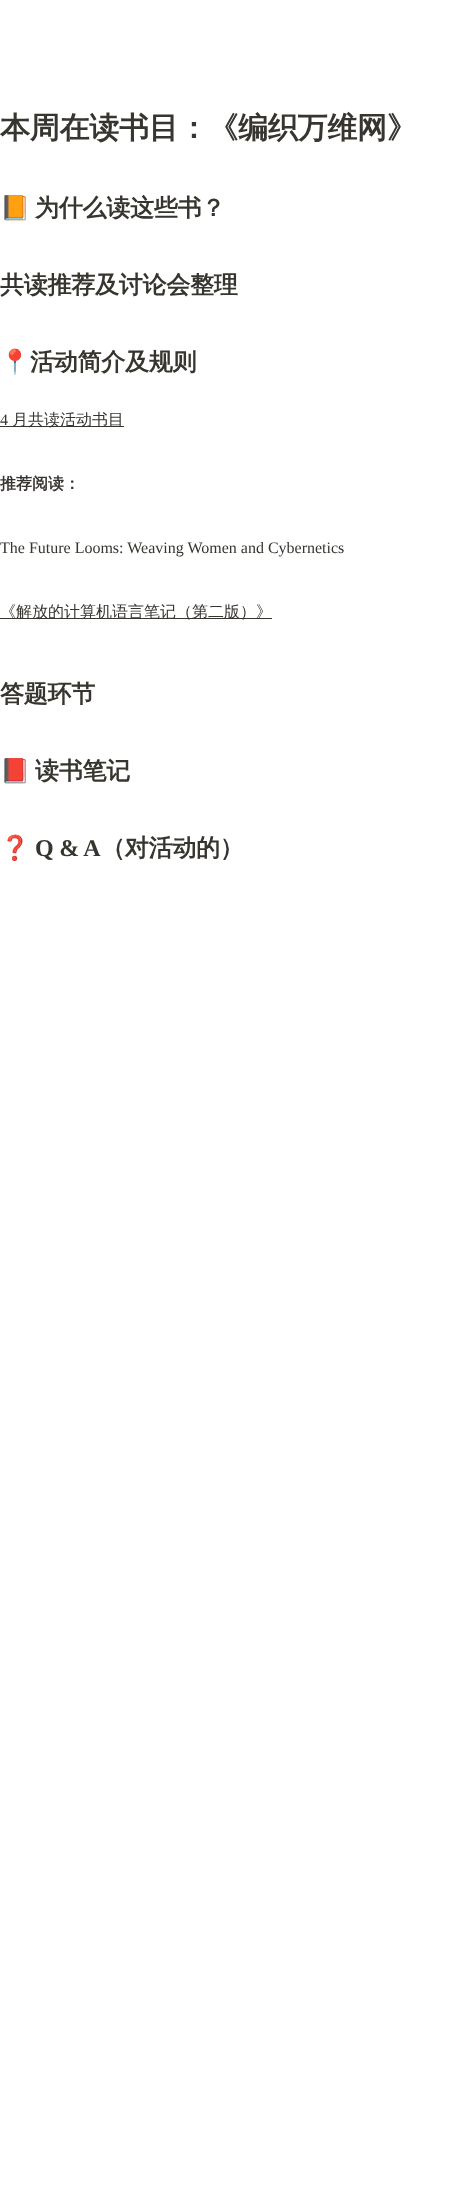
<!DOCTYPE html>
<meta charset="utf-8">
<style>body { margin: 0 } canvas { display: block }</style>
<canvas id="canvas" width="474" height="2209"></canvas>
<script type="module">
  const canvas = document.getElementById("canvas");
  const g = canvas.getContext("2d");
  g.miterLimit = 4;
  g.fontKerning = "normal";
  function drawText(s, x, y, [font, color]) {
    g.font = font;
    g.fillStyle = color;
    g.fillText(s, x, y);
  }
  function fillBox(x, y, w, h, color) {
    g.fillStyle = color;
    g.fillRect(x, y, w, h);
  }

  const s1 = ["bold 30px WenQuanYi Zen Hei", "#37352F"];
  const s2 = ["bold 24px Noto Color Emoji", "#37352F"];
  const s3 = ["bold 24px WenQuanYi Zen Hei", "#37352F"];
  const s4 = ["16px Liberation Serif", "#37352F"];
  const s5 = ["500 16px WenQuanYi Zen Hei", "#37352F"];
  const s6 = ["bold 16px WenQuanYi Zen Hei", "#37352F"];
  const s7 = ["bold 24px Liberation Serif", "#37352F"];

  fillBox(0, 0, 474, 2209, "#FFFFFF");
  g.letterSpacing = "-0.25px";
  drawText("本周在读书目：《编织万维网》", 0, 138, s1);
  drawText("📙", 0, 216, s2);
  drawText("为什么读这些书？", 35, 216, s3);
  drawText("共读推荐及讨论会整理", 0, 293, s3);
  drawText("📍", 0, 370, s2);
  drawText("活动简介及规则", 30, 370, s3);
  g.letterSpacing = "0px";
  drawText("4", 0, 425, s4);
  fillBox(0, 426, 124, 1, "#37352F");
  drawText("月共读活动书目", 12, 425, s5);
  drawText("推荐阅读：", 0, 489, s6);
  drawText("The Future Looms: Weaving Women and Cybernetics", 0, 553, s4);
  fillBox(0, 618, 272, 1, "#37352F");
  drawText("《解放的计算机语言笔记（第二版）》", 0, 617, s5);
  g.letterSpacing = "-0.25px";
  drawText("答题环节", 0, 702, s3);
  drawText("📕", 0, 779, s2);
  drawText("读书笔记", 35, 779, s3);
  drawText("❓", 0, 856, s2);
  drawText("Q & A", 35, 856, s7);
  drawText("（对活动的）", 101, 856, s3);
</script>
